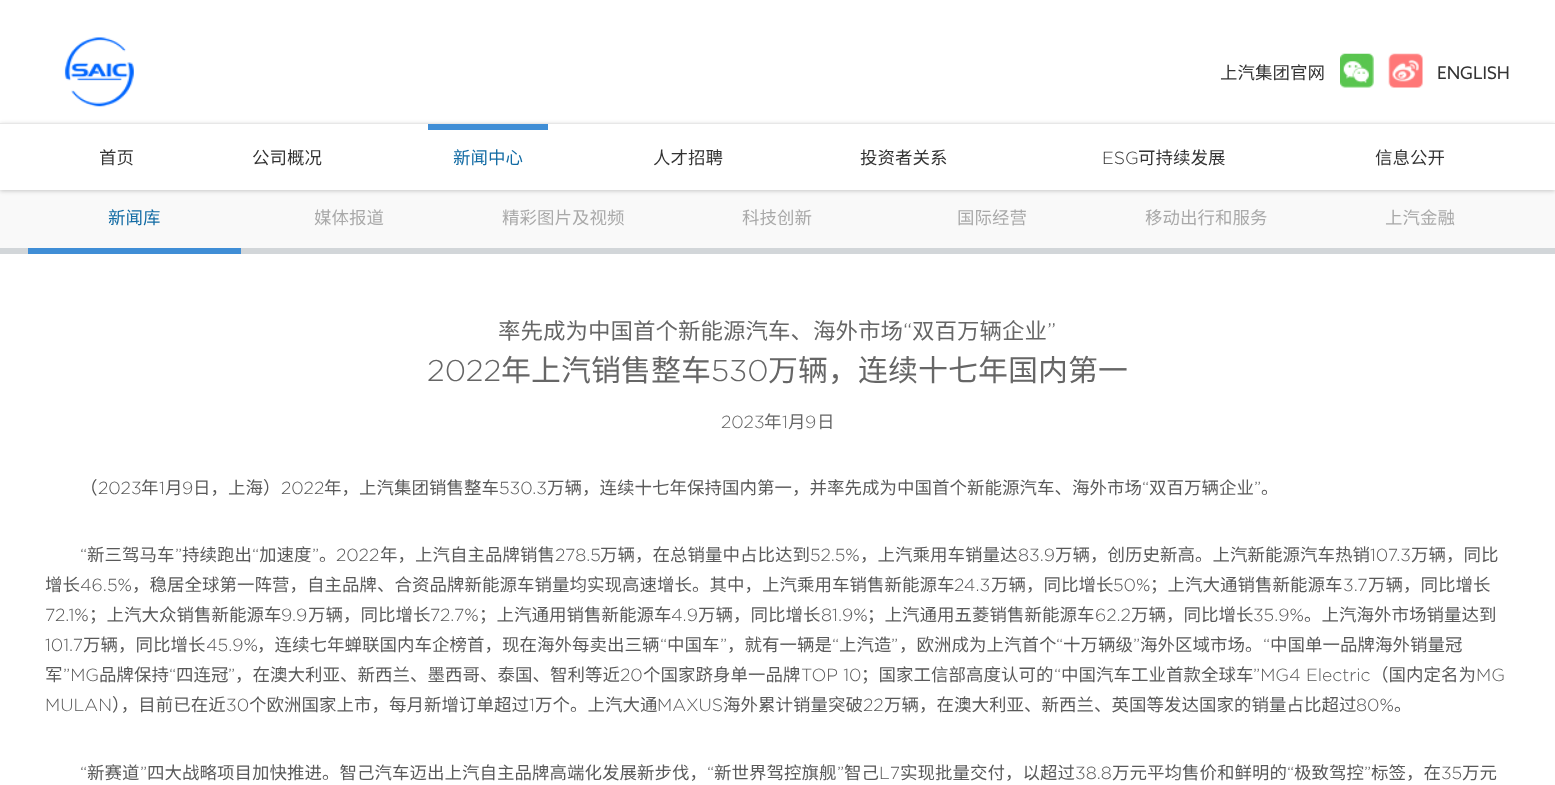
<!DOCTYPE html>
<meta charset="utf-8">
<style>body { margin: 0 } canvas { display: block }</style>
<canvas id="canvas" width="1555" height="785"></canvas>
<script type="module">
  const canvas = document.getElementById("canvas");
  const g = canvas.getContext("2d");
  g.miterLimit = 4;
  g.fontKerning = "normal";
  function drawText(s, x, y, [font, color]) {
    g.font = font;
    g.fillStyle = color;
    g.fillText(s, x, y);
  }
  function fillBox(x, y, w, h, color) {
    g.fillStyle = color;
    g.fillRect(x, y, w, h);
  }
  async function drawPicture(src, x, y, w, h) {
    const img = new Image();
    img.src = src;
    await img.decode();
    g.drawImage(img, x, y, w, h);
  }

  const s1 = ["17.5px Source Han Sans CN", "#333333"];
  const s2 = ["17.5px Source Han Sans CN", "#126BA4"];
  const s3 = ["300 17.5px Gotham", "#333333"];
  const s4 = ["17.5px Source Han Sans CN", "#A9A9A9"];
  const s5 = ["22.5px Source Han Sans CN", "#666666"];
  const s6 = ["300 22.5px Gotham", "#666666"];
  const s7 = ["300 30px Gotham", "#666666"];
  const s8 = ["30px Source Han Sans CN", "#666666"];
  const s9 = ["300 17.5px Gotham", "#666666"];
  const s10 = ["17.5px Source Han Sans CN", "#666666"];
  const s11 = ["17.5px Source Han Sans CN", "#595959"];
  const s12 = ["300 17.5px Gotham", "#595959"];

  fillBox(0, 0, 1555, 785, "#FFFFFF");
  await drawPicture("pic1.png", 64, 37, 70, 70);
  drawText("上汽集团官网", 1220, 79, s1);
  await drawPicture("pic2.png", 1340, 53, 34, 35);
  await drawPicture("pic3.png", 1388, 53, 35, 35);
  drawText("ENGLISH", 1437, 79, s1);
  fillBox(0, 190, 1555, 58, "#F9F9F9");
  g.save();
  g.beginPath();
  g.moveTo(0, 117);
  g.lineTo(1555, 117);
  g.lineTo(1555, 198);
  g.lineTo(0, 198);
  g.closePath();
  g.moveTo(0, 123);
  g.lineTo(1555, 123);
  g.lineTo(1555, 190);
  g.lineTo(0, 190);
  g.closePath();
  g.clip("evenodd");
  g.fillStyle = "rgba(0, 0, 0, 0.2)";
  g.filter = "blur(2px)";
  g.beginPath();
  g.rect(0, 124, 1555, 67);
  g.fill();
  g.filter = "none";
  g.restore();
  fillBox(0, 123, 1555, 1, "#E7E7E7");
  drawText("首页", 99, 164, s1);
  drawText("公司概况", 252, 164, s1);
  fillBox(428, 124, 120, 6, "#408ED6");
  drawText("新闻中心", 453, 164, s2);
  drawText("人才招聘", 653, 164, s1);
  drawText("投资者关系", 860, 164, s1);
  drawText("ESG", 1102, 164, s3);
  drawText("可持续发展", 1138, 164, s1);
  drawText("信息公开", 1375, 164, s1);
  fillBox(0, 248, 1555, 6, "#D2D6D9");
  fillBox(28, 248, 213, 6, "#408ED6");
  drawText("新闻库", 108, 224, s2);
  drawText("媒体报道", 314, 224, s4);
  drawText("精彩图片及视频", 502, 224, s4);
  drawText("科技创新", 742, 224, s4);
  drawText("国际经营", 957, 224, s4);
  drawText("移动出行和服务", 1145, 224, s4);
  drawText("上汽金融", 1385, 224, s4);
  drawText("率先成为中国首个新能源汽车、海外市场", 498, 339, s5);
  drawText("“", 903, 339, s6);
  drawText("双百万辆企业", 912, 339, s5);
  drawText("”", 1047, 339, s6);
  drawText("2022", 427, 381, s7);
  drawText("年上汽销售整车", 501, 381, s8);
  drawText("530", 711, 381, s7);
  drawText("万辆，连续十七年国内第一", 768, 381, s8);
  drawText("2023", 721, 428, s9);
  drawText("年", 764, 428, s10);
  drawText("1", 782, 428, s9);
  drawText("月", 788, 428, s10);
  drawText("9", 805, 428, s9);
  drawText("日", 817, 428, s10);
  drawText("（", 80, 494, s11);
  drawText("2023", 98, 494, s12);
  drawText("年", 141, 494, s11);
  drawText("1", 159, 494, s12);
  drawText("月", 165, 494, s11);
  drawText("9", 182, 494, s12);
  drawText("日，上海）", 193, 494, s11);
  drawText("2022", 281, 494, s12);
  drawText("年，上汽集团销售整车", 324, 494, s11);
  drawText("530.3", 499, 494, s12);
  drawText("万辆，连续十七年保持国内第一，并率先成为中国首个新能源汽车、海外市场", 547, 494, s11);
  drawText("“", 1142, 494, s12);
  drawText("双百万辆企业", 1149, 494, s11);
  drawText("”", 1254, 494, s12);
  drawText("。", 1261, 494, s11);
  drawText("“", 80, 561, s12);
  drawText("新三驾马车", 87, 561, s11);
  drawText("”", 175, 561, s12);
  drawText("持续跑出", 182, 561, s11);
  drawText("“", 252, 561, s12);
  drawText("加速度", 259, 561, s11);
  drawText("”", 312, 561, s12);
  drawText("。", 319, 561, s11);
  drawText("2022", 336, 561, s12);
  drawText("年，上汽自主品牌销售", 380, 561, s11);
  drawText("278.5", 555, 561, s12);
  drawText("万辆，在总销量中占比达到", 600, 561, s11);
  drawText("52.5%", 810, 561, s12);
  drawText("，上汽乘用车销量达", 860, 561, s11);
  drawText("83.9", 1018, 561, s12);
  drawText("万辆，创历史新高。上汽新能源汽车热销", 1055, 561, s11);
  drawText("107.3", 1370, 561, s12);
  drawText("万辆，同比", 1411, 561, s11);
  drawText("增长", 45, 591, s11);
  drawText("46.5%", 80, 591, s12);
  drawText("，稳居全球第一阵营，自主品牌、合资品牌新能源车销量均实现高速增长。其中，上汽乘用车销售新能源车", 132, 591, s11);
  drawText("24.3", 954, 591, s12);
  drawText("万辆，同比增长", 991, 591, s11);
  drawText("50%", 1113, 591, s12);
  drawText("；上汽大通销售新能源车", 1150, 591, s11);
  drawText("3.7", 1343, 591, s12);
  drawText("万辆，同比增长", 1368, 591, s11);
  drawText("72.1%", 45, 621, s12);
  drawText("；上汽大众销售新能源车", 89, 621, s11);
  drawText("9.9", 281, 621, s12);
  drawText("万辆，同比增长", 308, 621, s11);
  drawText("72.7%", 430, 621, s12);
  drawText("；上汽通用销售新能源车", 479, 621, s11);
  drawText("4.9", 671, 621, s12);
  drawText("万辆，同比增长", 698, 621, s11);
  drawText("81.9%", 821, 621, s12);
  drawText("；上汽通用五菱销售新能源车", 867, 621, s11);
  drawText("62.2", 1095, 621, s12);
  drawText("万辆，同比增长", 1131, 621, s11);
  drawText("35.9%", 1253, 621, s12);
  drawText("。上汽海外市场销量达到", 1304, 621, s11);
  drawText("101.7", 45, 651, s12);
  drawText("万辆，同比增长", 83, 651, s11);
  drawText("45.9%", 206, 651, s12);
  drawText("，连续七年蝉联国内车企榜首，现在海外每卖出三辆", 257, 651, s11);
  drawText("“", 660, 651, s12);
  drawText("中国车", 667, 651, s11);
  drawText("”", 720, 651, s12);
  drawText("，就有一辆是", 727, 651, s11);
  drawText("“", 832, 651, s12);
  drawText("上汽造", 839, 651, s11);
  drawText("”", 891, 651, s12);
  drawText("，欧洲成为上汽首个", 899, 651, s11);
  drawText("“", 1056, 651, s12);
  drawText("十万辆级", 1063, 651, s11);
  drawText("”", 1133, 651, s12);
  drawText("海外区域市场。", 1140, 651, s11);
  drawText("“", 1263, 651, s12);
  drawText("中国单一品牌海外销量冠", 1270, 651, s11);
  drawText("军", 45, 681, s11);
  drawText("”MG", 63, 681, s12);
  drawText("品牌保持", 99, 681, s11);
  drawText("“", 169, 681, s12);
  drawText("四连冠", 176, 681, s11);
  drawText("”", 228, 681, s12);
  drawText("，在澳大利亚、新西兰、墨西哥、泰国、智利等近", 235, 681, s11);
  drawText("20", 620, 681, s12);
  drawText("个国家跻身单一品牌", 643, 681, s11);
  drawText("TOP 10", 801, 681, s12);
  drawText("；国家工信部高度认可的", 861, 681, s11);
  drawText("“", 1054, 681, s12);
  drawText("中国汽车工业首款全球车", 1061, 681, s11);
  drawText("”MG4 Electric", 1253, 681, s12);
  drawText("（国内定名为", 1371, 681, s11);
  drawText("MG", 1476, 681, s12);
  drawText("MULAN", 45, 711, s12);
  drawText("），目前已在近", 112, 711, s11);
  drawText("30", 226, 711, s12);
  drawText("个欧洲国家上市，每月新增订单超过", 249, 711, s11);
  drawText("1", 529, 711, s12);
  drawText("万个。上汽大通", 535, 711, s11);
  drawText("MAXUS", 657, 711, s12);
  drawText("海外累计销量突破", 723, 711, s11);
  drawText("22", 863, 711, s12);
  drawText("万辆，在澳大利亚、新西兰、英国等发达国家的销量占比超过", 884, 711, s11);
  drawText("80%", 1356, 711, s12);
  drawText("。", 1394, 711, s11);
  drawText("“", 80, 779, s12);
  drawText("新赛道", 87, 779, s11);
  drawText("”", 140, 779, s12);
  drawText("四大战略项目加快推进。智己汽车迈出上汽自主品牌高端化发展新步伐，", 147, 779, s11);
  drawText("“", 707, 779, s12);
  drawText("新世界驾控旗舰", 714, 779, s11);
  drawText("”", 837, 779, s12);
  drawText("智己", 844, 779, s11);
  drawText("L7", 879, 779, s12);
  drawText("实现批量交付，以超过", 900, 779, s11);
  drawText("38.8", 1075, 779, s12);
  drawText("万元平均售价和鲜明的", 1112, 779, s11);
  drawText("“", 1287, 779, s12);
  drawText("极致驾控", 1294, 779, s11);
  drawText("”", 1364, 779, s12);
  drawText("标签，在", 1371, 779, s11);
  drawText("35", 1441, 779, s12);
  drawText("万元", 1462, 779, s11);
</script>
